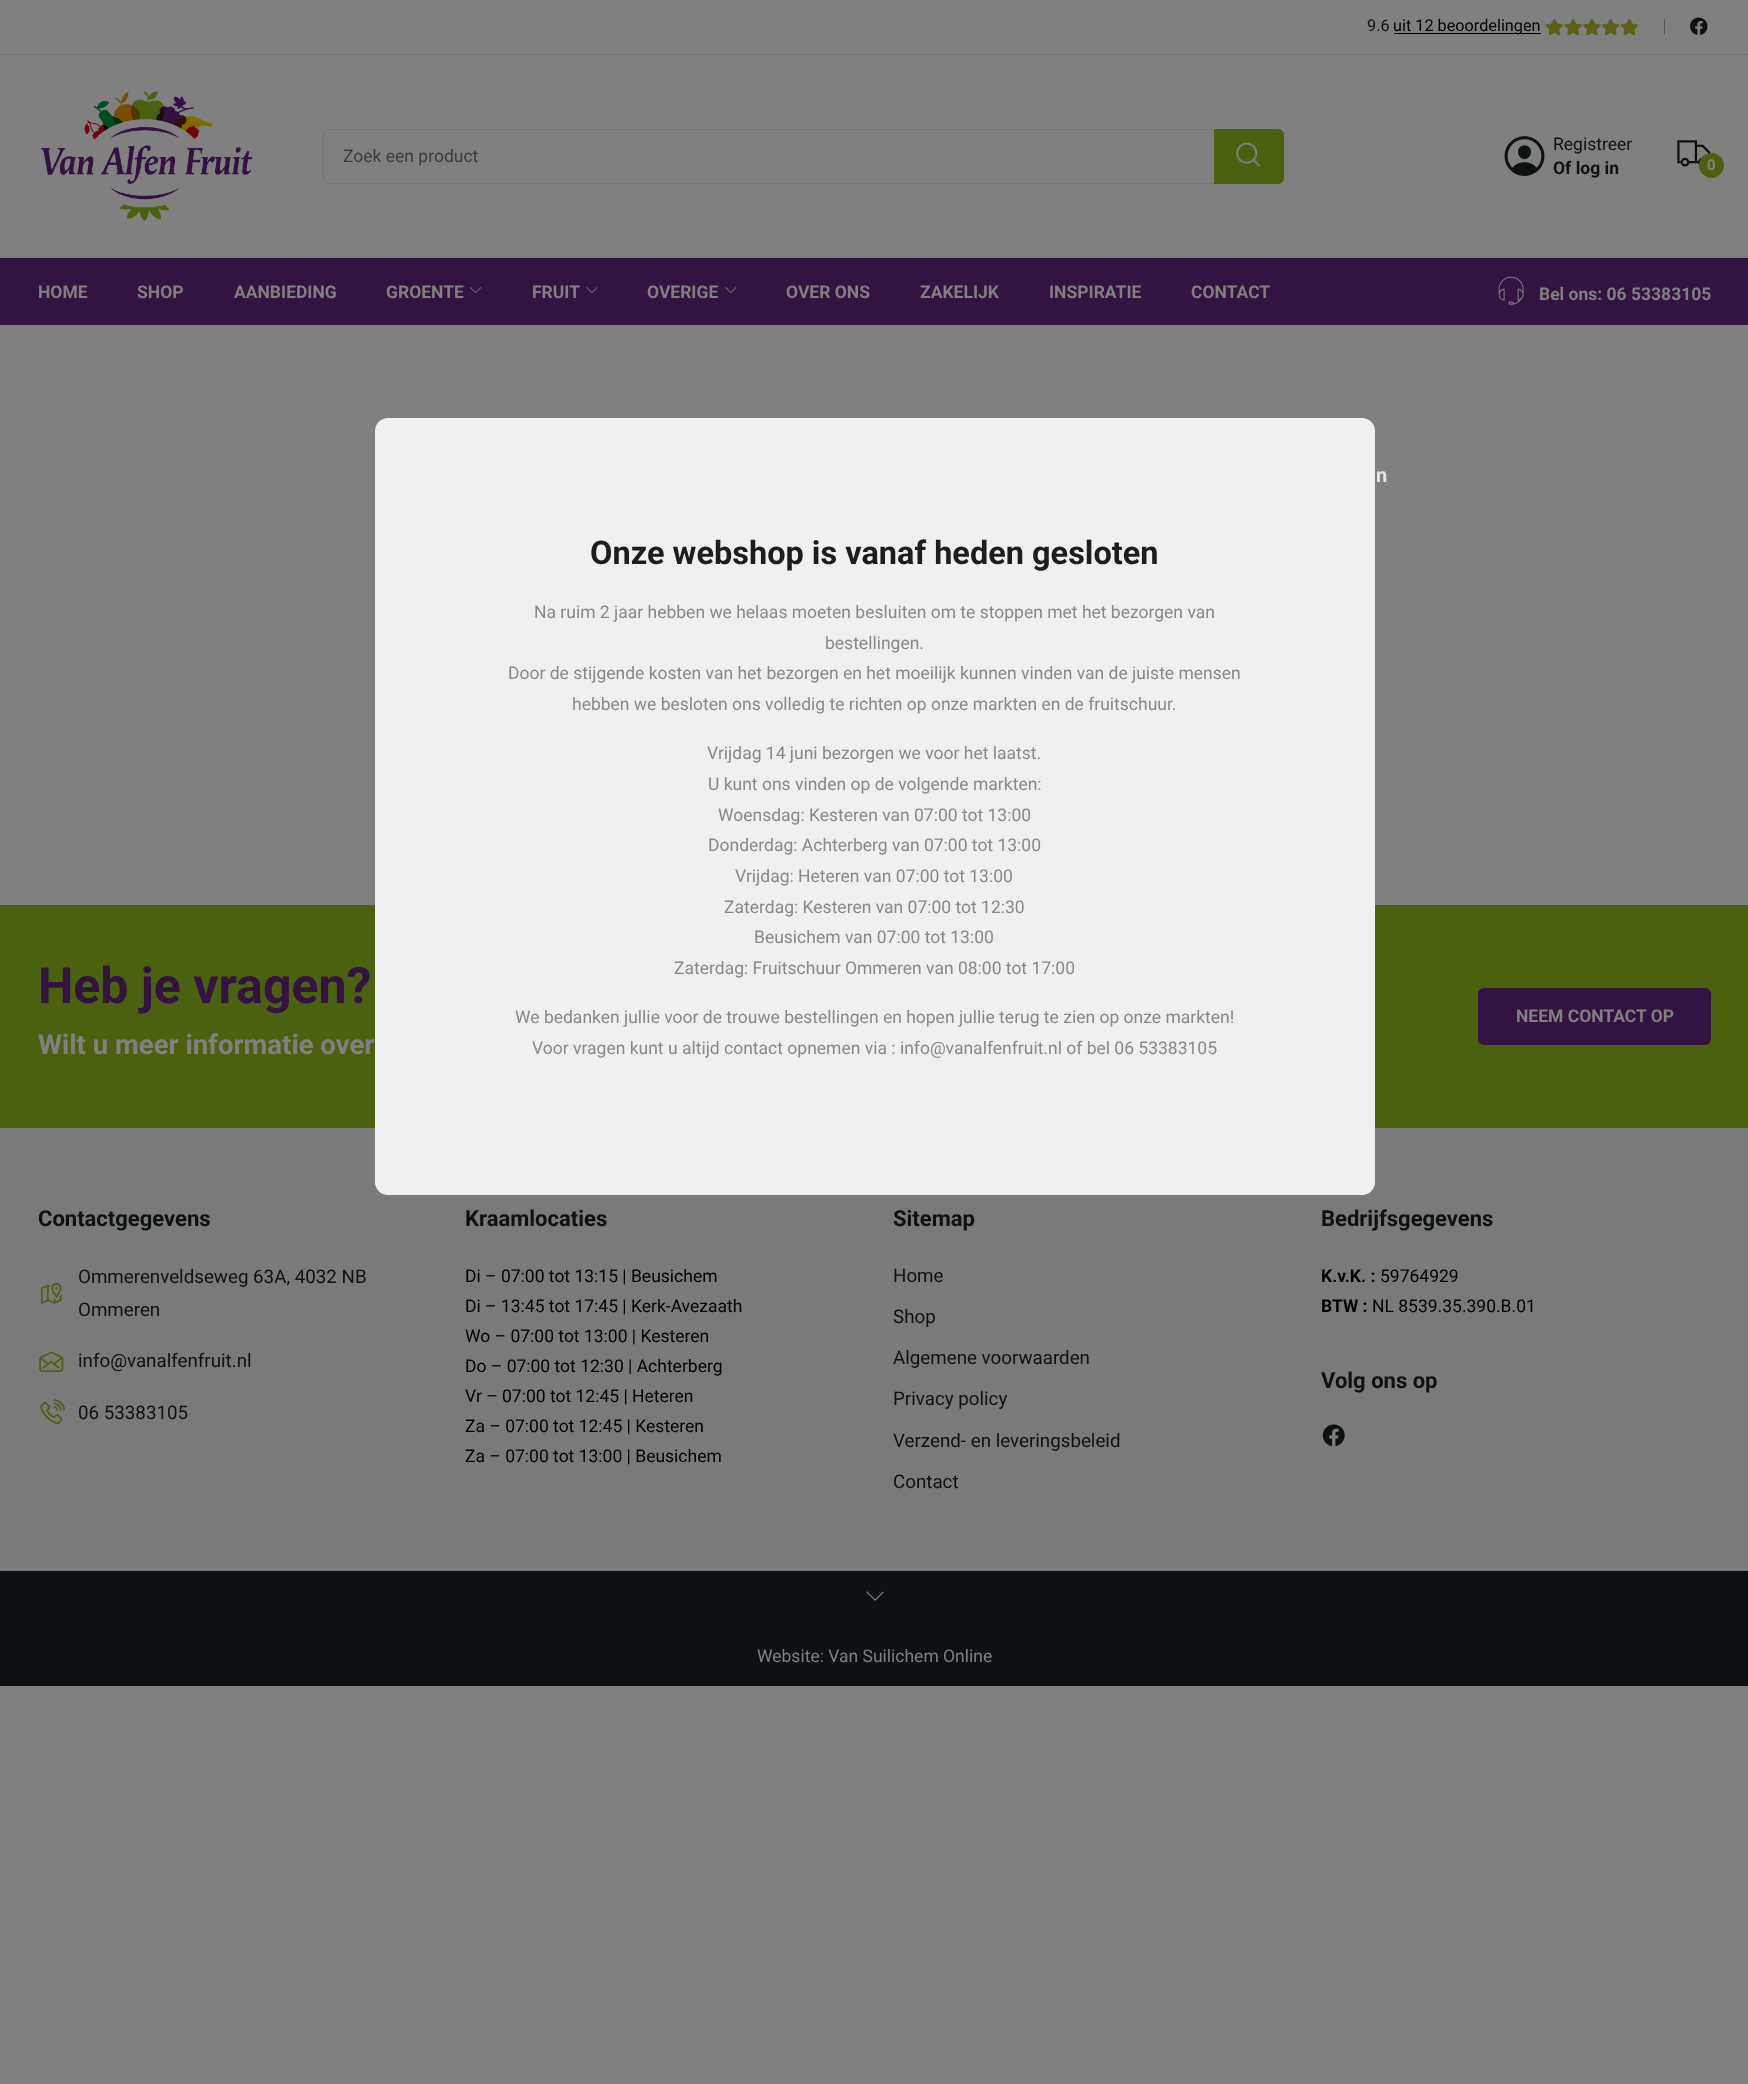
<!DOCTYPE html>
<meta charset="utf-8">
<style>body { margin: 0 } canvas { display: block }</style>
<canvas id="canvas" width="1748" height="2084"></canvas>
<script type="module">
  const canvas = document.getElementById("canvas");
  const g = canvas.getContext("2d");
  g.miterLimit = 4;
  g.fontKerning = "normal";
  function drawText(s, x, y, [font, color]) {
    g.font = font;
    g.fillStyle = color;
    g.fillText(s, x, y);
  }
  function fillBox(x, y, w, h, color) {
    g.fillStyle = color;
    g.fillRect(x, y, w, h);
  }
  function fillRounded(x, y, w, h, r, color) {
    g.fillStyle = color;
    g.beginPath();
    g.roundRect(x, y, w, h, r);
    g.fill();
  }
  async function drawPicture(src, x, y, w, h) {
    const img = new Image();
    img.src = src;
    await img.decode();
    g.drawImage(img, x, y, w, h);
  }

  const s1 = ["16.25px Roboto", "#0D1113"];
  const s2 = ["16.25px Roboto", "#000000"];
  const s3 = ["17.5px Roboto", "#3B3B3B"];
  const s4 = ["17.5px Roboto", "#0D1113"];
  const s5 = ["bold 17.5px Roboto", "#0D1113"];
  const s6 = ["bold 15px Roboto", "#808080"];
  const s7 = ["bold 17.5px Roboto", "#808080"];
  const s8 = ["bold 20px Roboto", "#E7E7E7"];
  const s9 = ["bold 50px Roboto", "#331342"];
  const s10 = ["bold 27.5px Roboto", "#808080"];
  const s11 = ["bold 22px Roboto", "#0D1113"];
  const s12 = ["18.75px Roboto", "#0D1113"];
  const s13 = ["17.5px Roboto", "#000000"];
  const s14 = ["bold 17.5px Roboto", "#000000"];
  const s15 = ["17.5px Roboto", "#808080"];
  const s16 = ["bold 32.5px Roboto", "#1D1D1D"];
  const s17 = ["17.5px Roboto", "#888888"];

  fillBox(0, 0, 1748, 2084, "#808080");
  fillBox(0, 54, 1748, 1, "#717171");
  drawText("9.6", 1367, 31, s1);
  fillBox(1394, 33, 147, 1, "#000000");
  drawText("uit 12 beoordelingen", 1393, 31, s2);
  await drawPicture("pic1.png", 1545, 19, 19, 16);
  await drawPicture("pic2.png", 1564, 19, 18, 16);
  await drawPicture("pic3.png", 1583, 19, 18, 16);
  await drawPicture("pic4.png", 1601, 19, 19, 16);
  await drawPicture("pic1.png", 1620, 19, 19, 16);
  fillBox(1664, 19, 1, 15, "#595959");
  await drawPicture("pic5.png", 1690, 17, 18, 18);
  await drawPicture("pic6.png", 41, 91, 212, 131);
  g.beginPath();
  g.roundRect(323.5, 129.5, 960, 54, 5.5);
  g.strokeStyle = "#767676";
  g.stroke();
  drawText("Zoek een product", 343, 162, s3);
  g.fillStyle = "#4C6110";
  g.beginPath();
  g.roundRect(1214, 129, 70, 55, [0, 6, 6, 0]);
  g.fill();
  await drawPicture("pic7.png", 1236, 142, 24, 25);
  await drawPicture("pic8.png", 1504, 136, 41, 40);
  drawText("Registreer", 1553, 150, s4);
  drawText("Of log in", 1553, 174, s5);
  await drawPicture("pic9.png", 1677, 140, 34, 27);
  g.fillStyle = "#4C6110";
  g.beginPath();
  g.arc(1711.5, 165.5, 12.5, 0, Math.PI * 2);
  g.fill();
  drawText("0", 1707, 170, s6);
  fillBox(0, 258, 1748, 67, "#331342");
  drawText("HOME", 38, 298, s7);
  drawText("SHOP", 137, 298, s7);
  drawText("AANBIEDING", 234, 298, s7);
  drawText("GROENTE", 386, 298, s7);
  await drawPicture("pic10.png", 470, 287, 12, 6);
  drawText("FRUIT", 532, 298, s7);
  await drawPicture("pic11.png", 586, 287, 12, 6);
  drawText("n", 1376, 482, s8);
  drawText("OVERIGE", 647, 298, s7);
  await drawPicture("pic10.png", 725, 287, 12, 6);
  drawText("OVER ONS", 786, 298, s7);
  drawText("ZAKELIJK", 920, 298, s7);
  drawText("INSPIRATIE", 1049, 298, s7);
  drawText("CONTACT", 1191, 298, s7);
  await drawPicture("pic12.png", 1498, 276, 26, 29);
  drawText("Bel ons: 06 53383105", 1539, 300, s7);
  fillBox(0, 905, 1748, 223, "#4C6110");
  drawText("Heb je vragen?", 38, 1003, s9);
  drawText("Wilt u meer informatie over", 38, 1054, s10);
  fillRounded(1478, 988, 233, 57, 6, "#331342");
  drawText("NEEM CONTACT OP", 1516, 1022, s7);
  fillBox(0, 1128, 1748, 443, "#7A7A7A");
  drawText("Contactgegevens", 38, 1226, s11);
  await drawPicture("pic13.png", 40, 1283, 22, 21);
  drawText("Ommerenveldseweg 63A, 4032 NB", 78, 1283, s12);
  drawText("Ommeren", 78, 1316, s12);
  await drawPicture("pic14.png", 39, 1351, 25, 21);
  drawText("info@vanalfenfruit.nl", 78, 1367, s12);
  await drawPicture("pic15.png", 40, 1399, 25, 26);
  drawText("06 53383105", 78, 1419, s12);
  drawText("Kraamlocaties", 465, 1226, s11);
  drawText("Di – 07:00 tot 13:15 | Beusichem", 465, 1282, s13);
  drawText("Di – 13:45 tot 17:45 | Kerk-Avezaath", 465, 1312, s13);
  drawText("Wo – 07:00 tot 13:00 | Kesteren", 465, 1342, s13);
  drawText("Do – 07:00 tot 12:30 | Achterberg", 465, 1372, s13);
  drawText("Vr – 07:00 tot 12:45 | Heteren", 465, 1402, s13);
  drawText("Za – 07:00 tot 12:45 | Kesteren", 465, 1432, s13);
  drawText("Za – 07:00 tot 13:00 | Beusichem", 465, 1462, s13);
  drawText("Sitemap", 893, 1226, s11);
  drawText("Home", 893, 1282, s12);
  drawText("Shop", 893, 1323, s12);
  drawText("Algemene voorwaarden", 893, 1364, s12);
  drawText("Privacy policy", 893, 1405, s12);
  drawText("Verzend- en leveringsbeleid", 893, 1447, s12);
  drawText("Contact", 893, 1488, s12);
  drawText("Bedrijfsgegevens", 1321, 1226, s11);
  drawText("K.v.K. :", 1321, 1282, s14);
  drawText("59764929", 1380, 1282, s13);
  drawText("BTW :", 1321, 1312, s14);
  drawText("NL 8539.35.390.B.01", 1372, 1312, s13);
  drawText("Volg ons op", 1321, 1388, s11);
  await drawPicture("pic16.png", 1322, 1424, 23, 23);
  fillBox(0, 1571, 1748, 115, "#0D1113");
  await drawPicture("pic17.png", 866, 1591, 18, 10);
  drawText("Website: Van Suilichem Online", 757, 1662, s15);
  fillRounded(375, 418, 1000, 777, 13, "#F0F0F0");
  drawText("Onze webshop is vanaf heden gesloten", 590, 564, s16);
  drawText("Na ruim 2 jaar hebben we helaas moeten besluiten om te stoppen met het bezorgen van", 534, 618, s17);
  drawText("bestellingen.", 825, 649, s17);
  drawText("Door de stijgende kosten van het bezorgen en het moeilijk kunnen vinden van de juiste mensen", 508, 679, s17);
  drawText("hebben we besloten ons volledig te richten op onze markten en de fruitschuur.", 572, 710, s17);
  drawText("Vrijdag 14 juni bezorgen we voor het laatst.", 707, 759, s17);
  drawText("U kunt ons vinden op de volgende markten:", 708, 790, s17);
  drawText("Woensdag: Kesteren van 07:00 tot 13:00", 718, 821, s17);
  drawText("Donderdag: Achterberg van 07:00 tot 13:00", 708, 851, s17);
  drawText("Vrijdag: Heteren van 07:00 tot 13:00", 735, 882, s17);
  drawText("Zaterdag: Kesteren van 07:00 tot 12:30", 724, 913, s17);
  drawText("Beusichem van 07:00 tot 13:00", 754, 943, s17);
  drawText("Zaterdag: Fruitschuur Ommeren van 08:00 tot 17:00", 674, 974, s17);
  drawText("We bedanken jullie voor de trouwe bestellingen en hopen jullie terug te zien op onze markten!", 515, 1023, s17);
  drawText("Voor vragen kunt u altijd contact opnemen via : info@vanalfenfruit.nl of bel 06 53383105", 532, 1054, s17);
</script>
